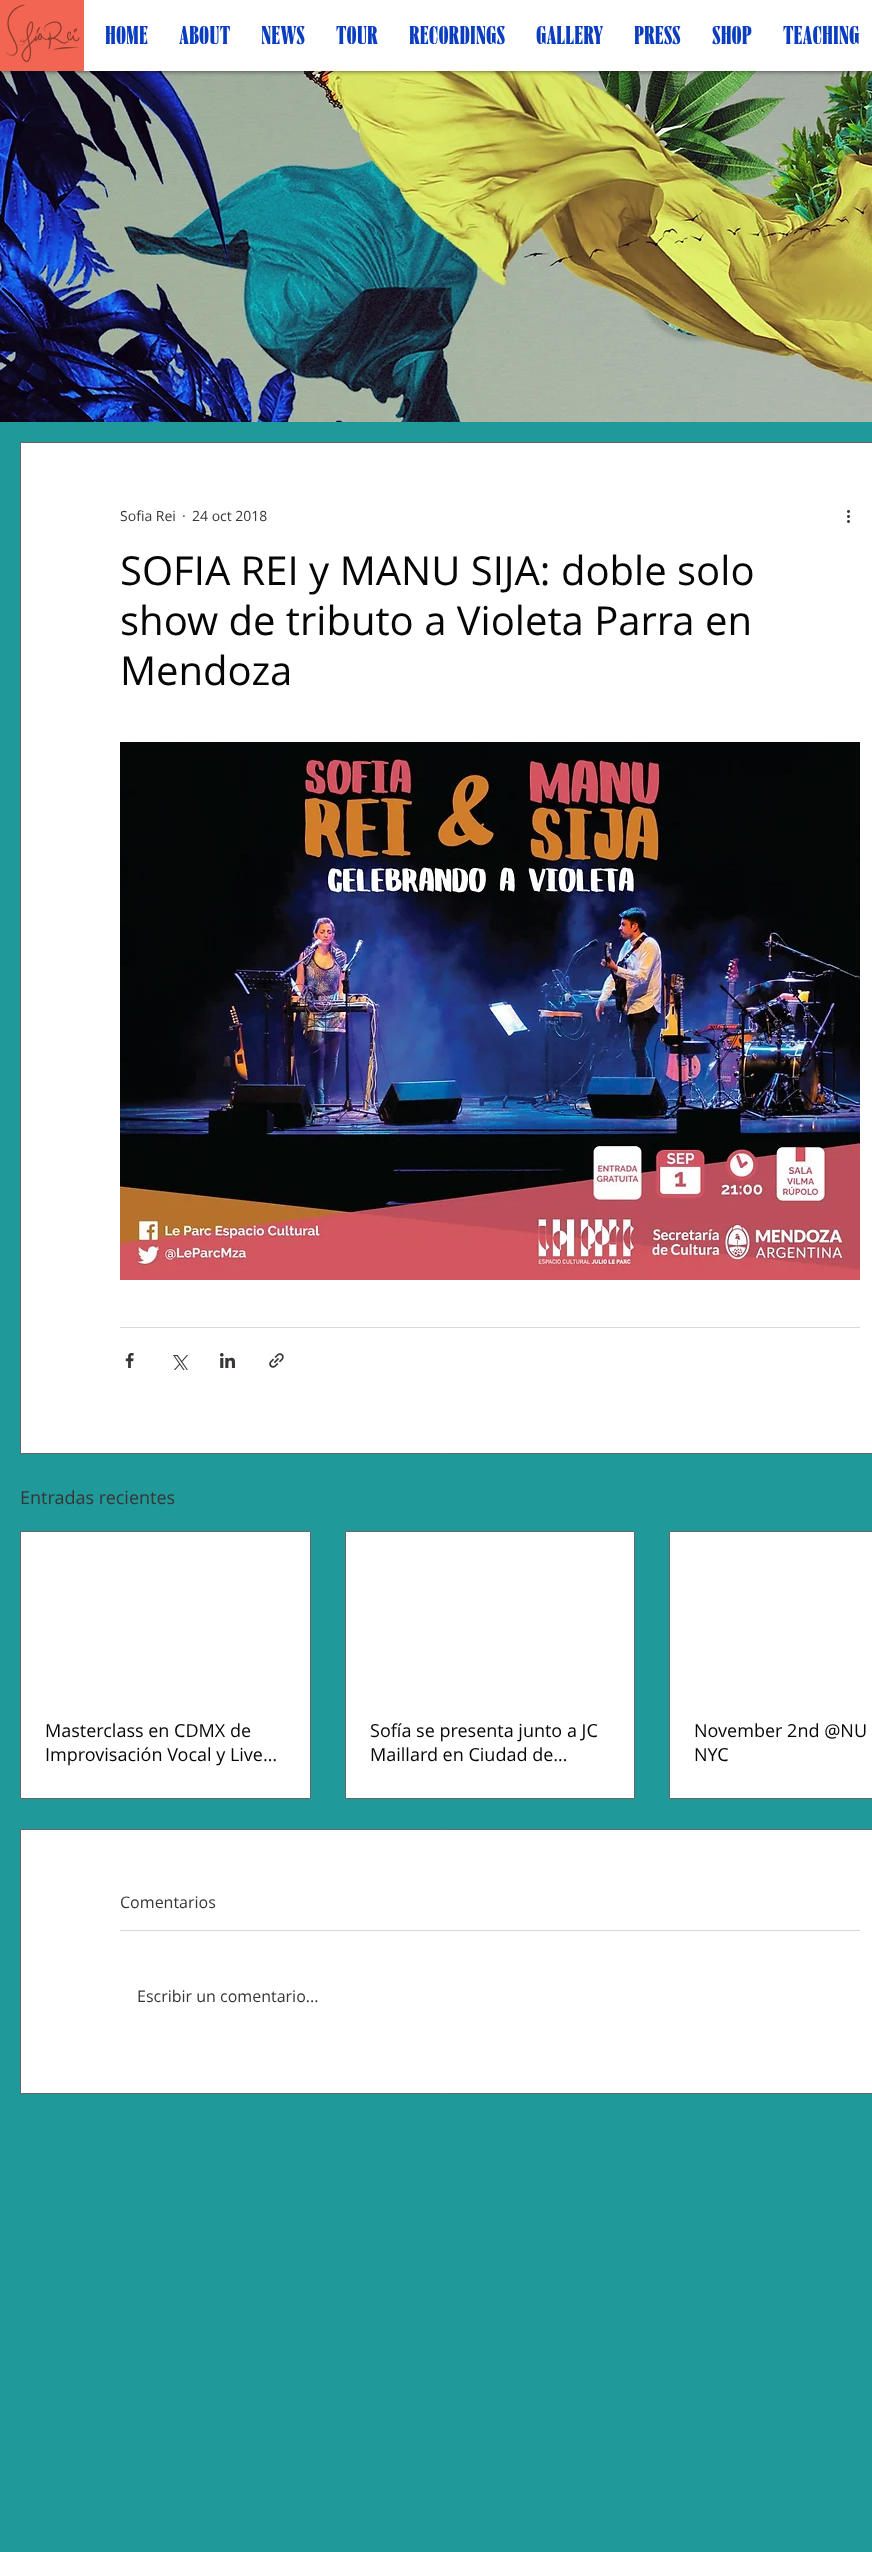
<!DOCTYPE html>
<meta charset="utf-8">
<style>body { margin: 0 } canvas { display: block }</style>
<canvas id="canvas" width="872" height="2552"></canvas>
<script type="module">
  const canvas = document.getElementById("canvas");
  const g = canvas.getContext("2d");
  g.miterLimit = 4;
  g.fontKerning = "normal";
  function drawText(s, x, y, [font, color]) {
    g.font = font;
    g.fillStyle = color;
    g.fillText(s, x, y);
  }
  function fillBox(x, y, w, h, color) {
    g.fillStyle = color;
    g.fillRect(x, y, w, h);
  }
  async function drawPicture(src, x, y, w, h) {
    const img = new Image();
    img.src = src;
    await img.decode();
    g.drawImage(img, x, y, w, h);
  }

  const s1 = ["900 24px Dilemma", "#0A3DBF"];
  const s2 = ["14px Open Sans", "#393535"];
  const s3 = ["40px Open Sans", "#070606"];
  const s4 = ["18px Open Sans", "#393535"];
  const s5 = ["18px Open Sans", "#070606"];
  const s6 = ["16px Open Sans", "#393535"];

  fillBox(0, 0, 872, 2552, "#1F9999");
  await drawPicture("pic8.png", 0, 71, 872, 351);
  g.fillStyle = "rgba(0, 0, 0, 0.7)";
  g.filter = "blur(2.5px)";
  g.beginPath();
  g.rect(0, 0, 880, 71);
  g.fill();
  g.filter = "none";
  await drawPicture("pic1.png", 0, 0, 84, 71);
  fillBox(84, 0, 788, 71, "#FFFFFF");
  drawText("HOME", 105, 44, s1);
  drawText("ABOUT", 179, 44, s1);
  drawText("NEWS", 261, 44, s1);
  drawText("TOUR", 336, 44, s1);
  drawText("RECORDINGS", 409, 44, s1);
  drawText("GALLERY", 536, 44, s1);
  drawText("PRESS", 634, 44, s1);
  drawText("SHOP", 712, 44, s1);
  drawText("TEACHING", 783, 44, s1);
  g.fillStyle = "#FFFFFF";
  g.beginPath();
  g.rect(20.5, 442.5, 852, 1011);
  g.fill();
  g.strokeStyle = "#696565";
  g.stroke();
  drawText("Sofia Rei", 120, 521, s2);
  drawText("·", 182, 521, s2);
  drawText("24 oct 2018", 192, 521, s2);
  await drawPicture("pic2.png", 847, 510, 3, 13);
  drawText("SOFIA REI y MANU SIJA: doble solo", 120, 585, s3);
  drawText("show de tributo a Violeta Parra en", 120, 635, s3);
  drawText("Mendoza", 120, 685, s3);
  await drawPicture("pic3.png", 120, 742, 740, 538);
  fillBox(120, 1327, 740, 1, "#D7D7D7");
  await drawPicture("pic4.png", 125, 1353, 9, 15);
  await drawPicture("pic5.png", 173, 1355, 15, 15);
  await drawPicture("pic6.png", 220, 1353, 15, 15);
  await drawPicture("pic7.png", 269, 1353, 15, 15);
  drawText("Entradas recientes", 20, 1504, s4);
  g.fillStyle = "#FFFFFF";
  g.beginPath();
  g.rect(20.5, 1531.5, 290, 267);
  g.fill();
  g.stroke();
  drawText("Masterclass en CDMX de", 45, 1737, s5);
  drawText("Improvisación Vocal y Live…", 45, 1761, s5);
  g.fillStyle = "#FFFFFF";
  g.beginPath();
  g.rect(345.5, 1531.5, 289, 267);
  g.fill();
  g.stroke();
  drawText("Sofía se presenta junto a JC", 370, 1737, s5);
  drawText("Maillard en Ciudad de…", 370, 1761, s5);
  g.fillStyle = "#FFFFFF";
  g.beginPath();
  g.rect(669.5, 1531.5, 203, 267);
  g.fill();
  g.stroke();
  drawText("November 2nd @NU", 694, 1737, s5);
  drawText("NYC", 694, 1761, s5);
  g.fillStyle = "#FFFFFF";
  g.beginPath();
  g.rect(20.5, 1829.5, 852, 264);
  g.fill();
  g.stroke();
  drawText("Comentarios", 120, 1908, s6);
  fillBox(120, 1930, 740, 1, "#D7D7D7");
  drawText("Escribir un comentario...", 137, 2002, s6);
</script>
